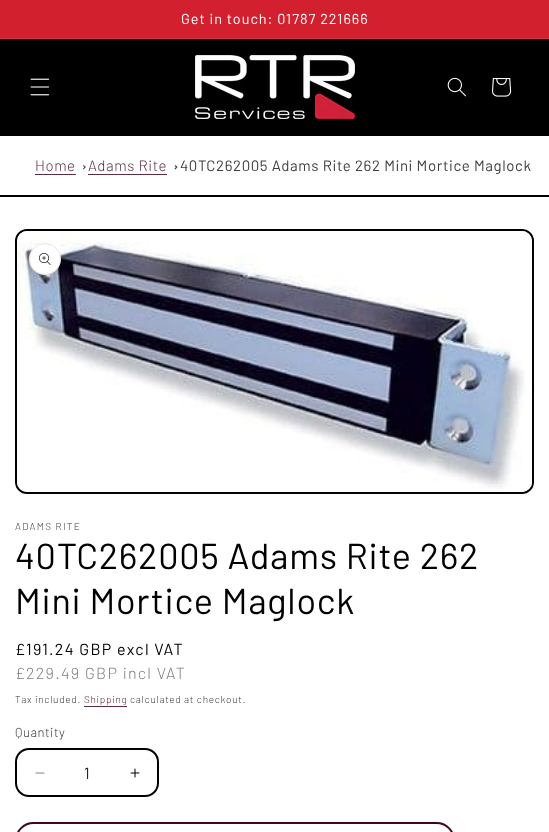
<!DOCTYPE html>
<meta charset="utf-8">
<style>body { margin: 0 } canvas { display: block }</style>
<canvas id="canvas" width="549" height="832"></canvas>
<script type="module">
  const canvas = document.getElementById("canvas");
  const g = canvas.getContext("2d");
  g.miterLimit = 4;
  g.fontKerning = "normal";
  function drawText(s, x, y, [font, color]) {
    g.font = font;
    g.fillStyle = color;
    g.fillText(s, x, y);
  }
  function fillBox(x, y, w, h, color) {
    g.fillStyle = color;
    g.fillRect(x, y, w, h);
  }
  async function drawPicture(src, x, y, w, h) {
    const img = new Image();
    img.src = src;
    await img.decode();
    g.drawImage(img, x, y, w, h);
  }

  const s1 = ["14.4px Barlow", "#FFFFFF"];
  const s2 = ["300 15px Barlow", "#5A2D3D"];
  const s3 = ["15px Barlow", "#404040"];
  const s4 = ["300 10px Barlow", "#404040"];
  const s5 = ["36px Barlow", "#000000"];
  const s6 = ["16px Barlow", "#000000"];
  const s7 = ["300 16px Barlow", "#808080"];
  const s8 = ["300 10px Barlow", "#5A2D3D"];
  const s9 = ["300 13px Barlow", "#404040"];
  const s10 = ["16px Barlow", "#262626"];

  fillBox(0, 0, 549, 832, "#FFFFFF");
  fillBox(0, 0, 549, 38, "#D2202F");
  fillBox(0, 38, 549, 1, "#D63240");
  g.letterSpacing = "1px";
  drawText("Get in touch: 01787 221666", 181, 24, s1);
  fillBox(0, 39, 549, 97, "#000000");
  await drawPicture("pic1.png", 30, 78, 20, 18);
  await drawPicture("pic2.png", 195, 55, 160, 64);
  await drawPicture("pic3.png", 447, 77, 19, 20);
  await drawPicture("pic4.png", 492, 78, 20, 19);
  fillBox(0, 195, 549, 2, "#000000");
  g.letterSpacing = "0.6px";
  drawText("Home", 35, 171, s2);
  fillBox(35, 174, 41, 1, "#5A2D3D");
  g.fillStyle = "#404040";
  g.beginPath();
  g.moveTo(83.5, 165);
  g.lineTo(86, 167);
  g.lineTo(84.5, 167);
  g.lineTo(83, 166);
  g.closePath();
  g.moveTo(86, 167);
  g.lineTo(83.5, 169.5);
  g.lineTo(83, 168.5);
  g.lineTo(84.5, 167);
  g.closePath();
  g.fill();
  drawText("Adams Rite", 88, 171, s2);
  fillBox(88, 174, 79, 1, "#5A2D3D");
  g.fillStyle = "#404040";
  g.beginPath();
  g.moveTo(175.5, 165);
  g.lineTo(177.5, 167);
  g.lineTo(176, 167);
  g.lineTo(174.5, 166);
  g.closePath();
  g.moveTo(177.5, 167);
  g.lineTo(175.5, 169.5);
  g.lineTo(174.5, 168.5);
  g.lineTo(176, 167);
  g.closePath();
  g.fill();
  drawText("40TC262005 Adams Rite 262 Mini Mortice Maglock", 180, 171, s3);
  g.beginPath();
  g.roundRect(16, 230, 517, 263, 11);
  g.strokeStyle = "#000000";
  g.lineWidth = 2;
  g.stroke();
  await drawPicture("pic5.png", 17, 231, 515, 261);
  g.fillStyle = "#FFFFFF";
  g.beginPath();
  g.arc(45, 259, 16, 0, Math.PI * 2);
  g.fill();
  g.beginPath();
  g.arc(45, 259, 15.5, 0, Math.PI * 2);
  g.strokeStyle = "rgba(0, 0, 0, 0.1)";
  g.lineWidth = 1;
  g.stroke();
  await drawPicture("pic6.png", 39, 253, 12, 12);
  g.letterSpacing = "1.3px";
  drawText("ADAMS RITE", 15, 530, s4);
  g.letterSpacing = "0.75px";
  drawText("40TC262005 Adams Rite 262", 15, 569, s5);
  drawText("Mini Mortice Maglock", 15, 614, s5);
  g.letterSpacing = "1.3px";
  drawText("£191.24 GBP excl VAT", 15, 655, s6);
  drawText("£229.49 GBP incl VAT", 15, 679, s7);
  g.letterSpacing = "0.7px";
  drawText("Tax included.", 15, 703, s4);
  drawText("Shipping", 84, 703, s8);
  fillBox(84, 706, 43, 1, "#5A2D3D");
  drawText("calculated at checkout.", 130, 703, s4);
  g.letterSpacing = "0.5px";
  drawText("Quantity", 15, 737, s9);
  await drawPicture("pic7.png", 35, 772, 10, 2);
  await drawPicture("pic8.png", 130, 768, 10, 10);
  g.beginPath();
  g.roundRect(16, 749, 142, 47, 13);
  g.strokeStyle = "#000000";
  g.lineWidth = 2;
  g.stroke();
  g.letterSpacing = "0px";
  drawText("1", 84, 779, s10);
  g.beginPath();
  g.roundRect(16, 823, 438, 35, 23.5);
  g.strokeStyle = "#3D081B";
  g.stroke();
</script>
